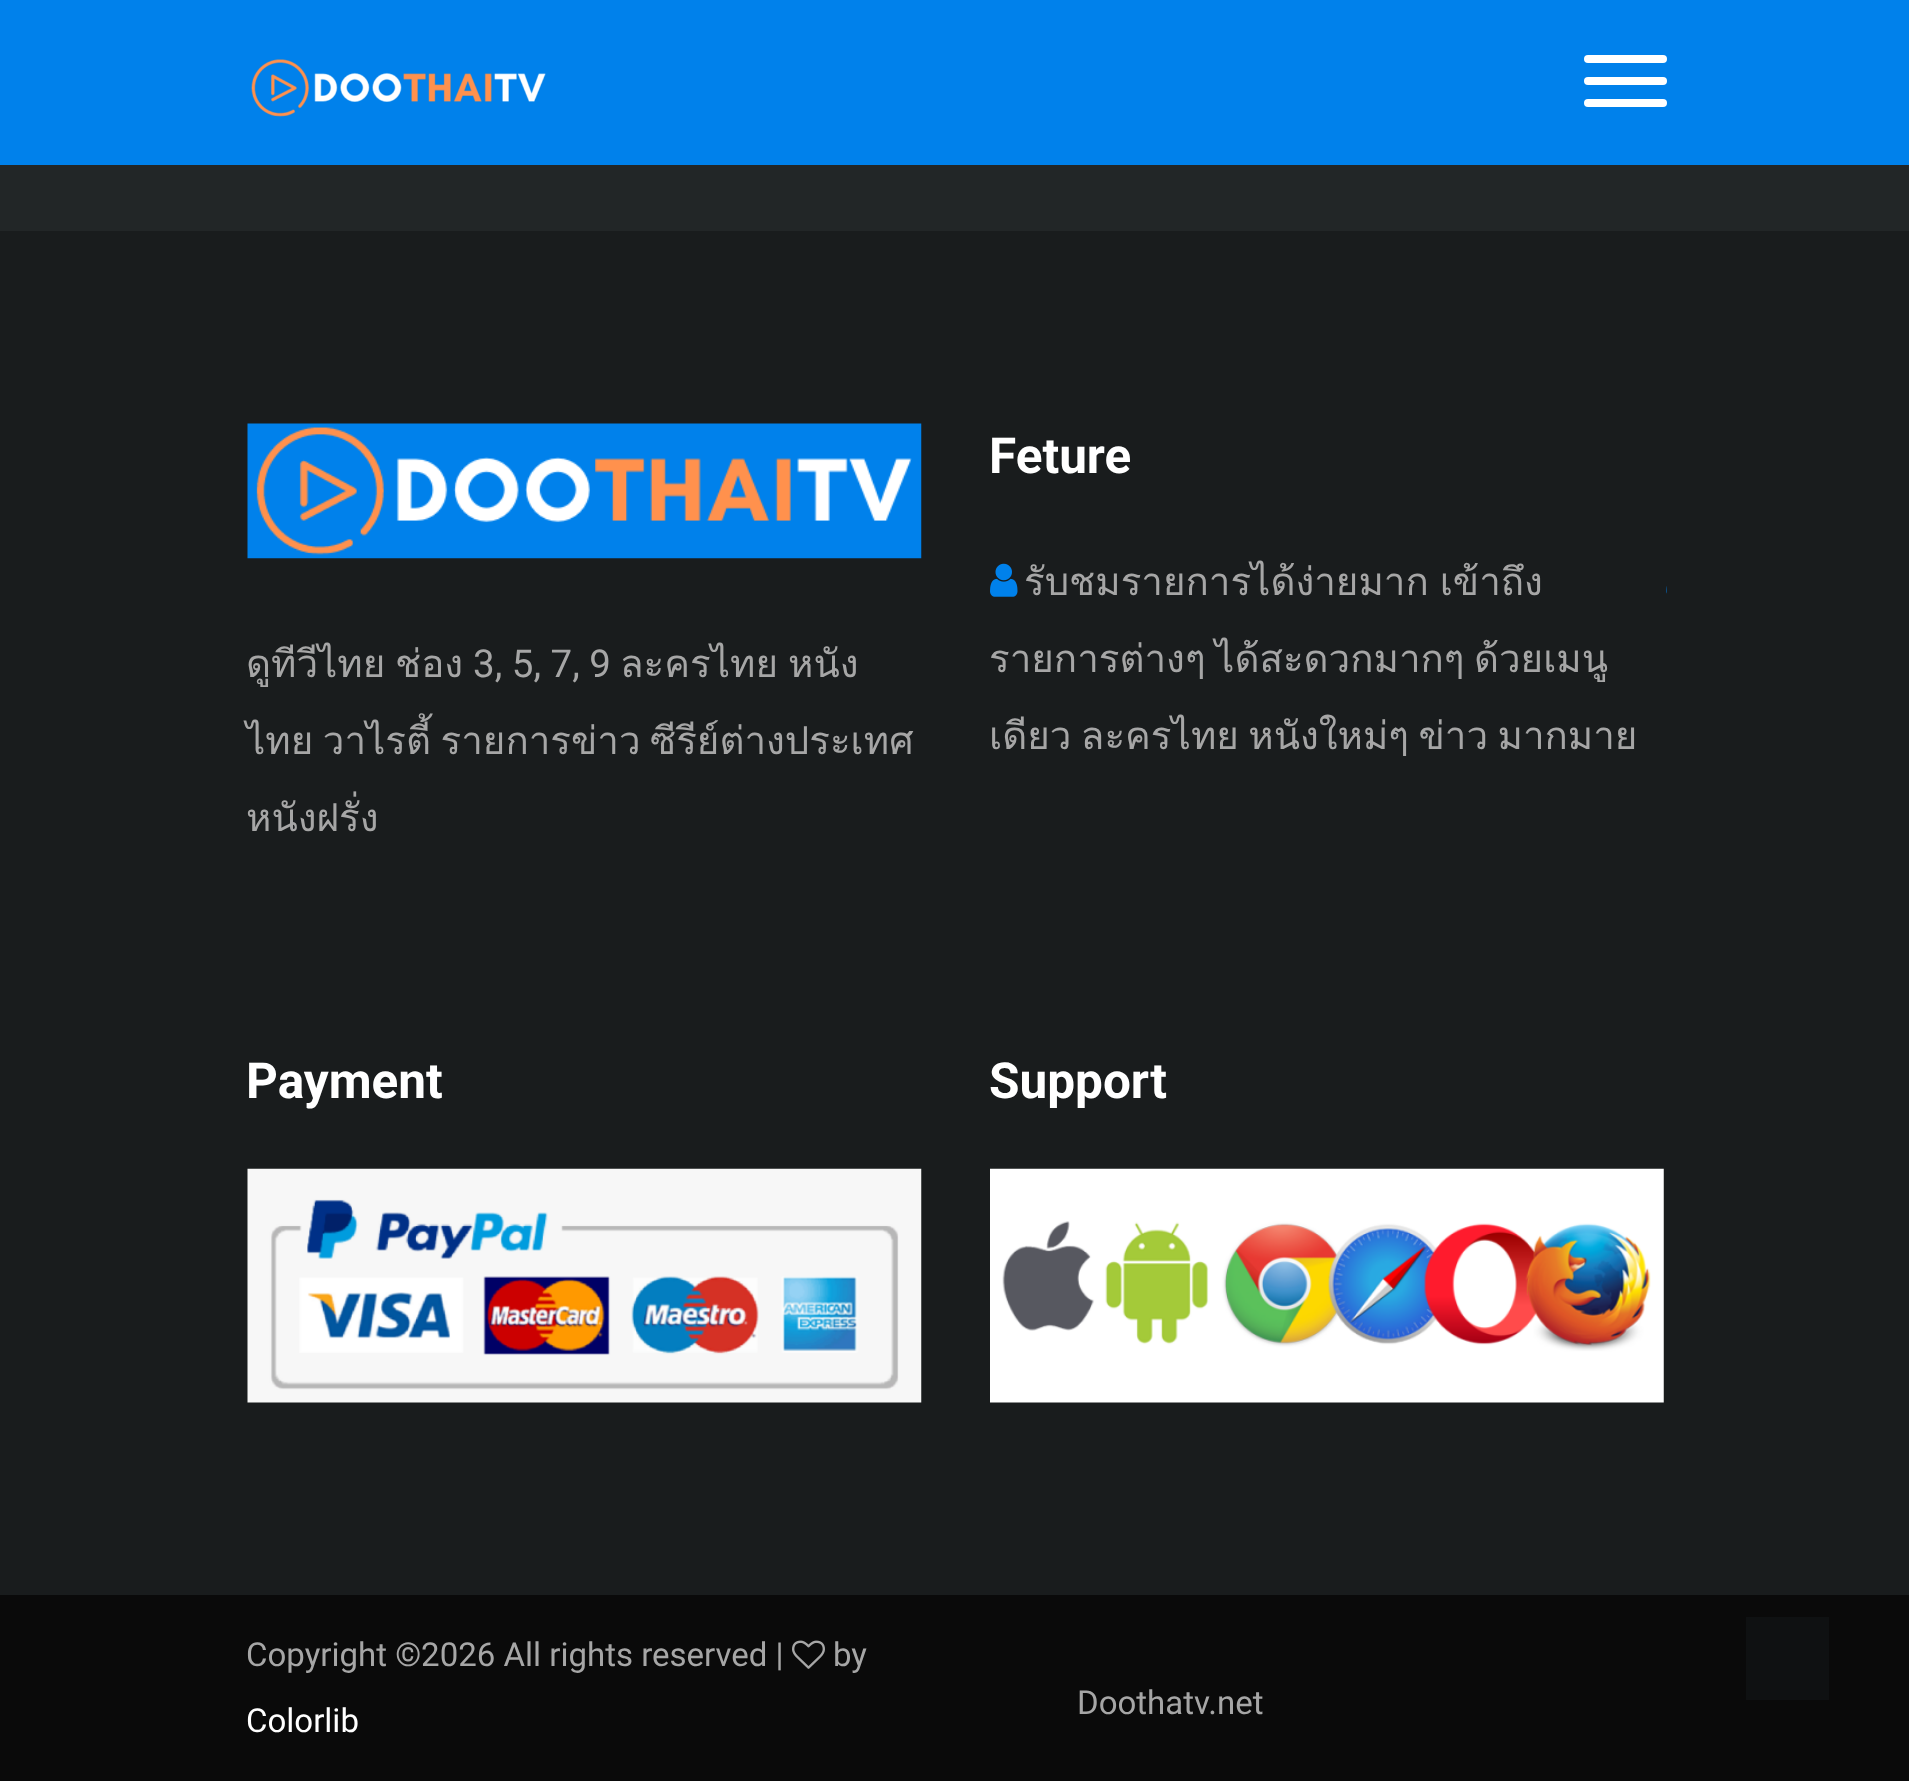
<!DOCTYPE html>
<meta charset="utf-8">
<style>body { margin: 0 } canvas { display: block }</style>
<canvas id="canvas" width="1909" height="1781"></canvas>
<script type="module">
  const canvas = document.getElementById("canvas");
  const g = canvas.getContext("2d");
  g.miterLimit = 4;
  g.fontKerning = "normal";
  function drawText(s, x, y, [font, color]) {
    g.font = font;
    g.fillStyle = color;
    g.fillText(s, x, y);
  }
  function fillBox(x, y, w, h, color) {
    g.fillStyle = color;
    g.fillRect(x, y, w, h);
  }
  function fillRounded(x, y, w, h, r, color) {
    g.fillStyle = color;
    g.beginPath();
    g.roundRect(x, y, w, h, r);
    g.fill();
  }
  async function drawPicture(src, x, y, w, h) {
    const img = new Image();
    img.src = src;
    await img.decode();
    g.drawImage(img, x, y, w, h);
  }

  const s1 = ["38.5px Loma", "#A6A6A6"];
  const s2 = ["38.5px Roboto", "#A6A6A6"];
  const s3 = ["bold 49.5px Roboto", "#FFFFFF"];
  const s4 = ["33px Roboto", "#A6A6A6"];
  const s5 = ["33px Roboto", "#FFFFFF"];

  fillBox(0, 0, 1909, 1781, "#222627");
  fillBox(0, 0, 1909, 165, "#0081EB");
  await drawPicture("pic1.png", 251, 59, 295, 58);
  fillRounded(1584, 55, 83, 8, 4, "#FFFFFF");
  fillRounded(1584, 77, 83, 8, 4, "#FFFFFF");
  fillRounded(1584, 99, 83, 8, 4, "#FFFFFF");
  fillBox(0, 231, 1909, 1364, "#191C1D");
  await drawPicture("pic2.png", 247, 423, 675, 136);
  drawText("ดูทีวีไทย", 246, 677, s1);
  drawText("ช่อง", 395, 677, s1);
  drawText("3, 5, 7, 9", 473, 677, s2);
  drawText("ละครไทย", 620, 677, s1);
  drawText("หนัง", 788, 677, s1);
  g.wordSpacing = "-3.5px";
  drawText("ไทย วาไรตี้ รายการข่าว ซีรีย์ต่างประเทศ", 246, 754, s1);
  g.wordSpacing = "0px";
  drawText("หนังฝรั่ง", 246, 831, s1);
  drawText("Feture", 989, 473, s3);
  await drawPicture("pic3.png", 990, 563, 28, 34);
  g.wordSpacing = "-2px";
  drawText("รับชมรายการได้ง่ายมาก เข้าถึง", 1024, 595, s1);
  g.wordSpacing = "-3.5px";
  drawText("รายการต่างๆ ได้สะดวกมากๆ ด้วยเมนู", 989, 672, s1);
  g.save();
  g.beginPath();
  g.rect(990, 542, 677, 231);
  g.clip();
  drawText("เดียว ละครไทย หนังใหม่ๆ ข่าว มากมาย", 989, 749, s1);
  g.restore();
  await drawPicture("pic4.png", 1666, 586, 1, 8);
  g.wordSpacing = "0px";
  drawText("Payment", 246, 1098, s3);
  await drawPicture("pic5.png", 247, 1168, 675, 235);
  drawText("Support", 989, 1098, s3);
  await drawPicture("pic6.png", 990, 1168, 674, 235);
  fillBox(0, 1595, 1909, 186, "#0A0A0A");
  drawText("Copyright ©2026 All rights reserved |", 246, 1666, s4);
  await drawPicture("pic7.png", 792, 1640, 33, 29);
  drawText("by", 833, 1666, s4);
  drawText("Colorlib", 246, 1732, s5);
  drawText("Doothatv.net", 1077, 1714, s4);
  fillBox(1746, 1617, 83, 83, "#0F1112");
</script>
